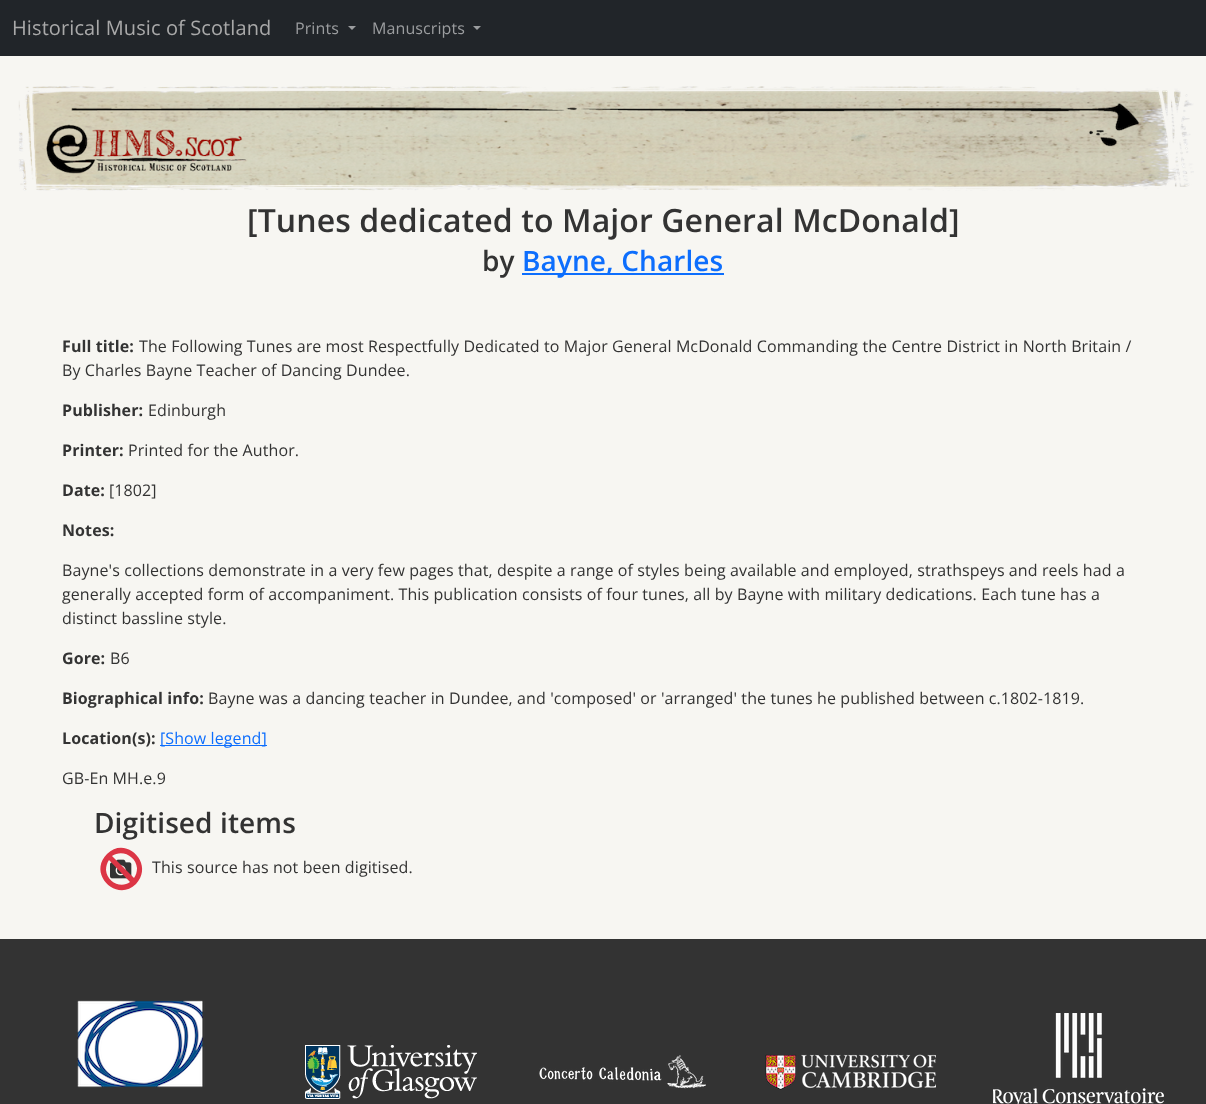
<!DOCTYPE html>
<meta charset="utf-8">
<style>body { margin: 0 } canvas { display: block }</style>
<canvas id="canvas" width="1206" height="1104"></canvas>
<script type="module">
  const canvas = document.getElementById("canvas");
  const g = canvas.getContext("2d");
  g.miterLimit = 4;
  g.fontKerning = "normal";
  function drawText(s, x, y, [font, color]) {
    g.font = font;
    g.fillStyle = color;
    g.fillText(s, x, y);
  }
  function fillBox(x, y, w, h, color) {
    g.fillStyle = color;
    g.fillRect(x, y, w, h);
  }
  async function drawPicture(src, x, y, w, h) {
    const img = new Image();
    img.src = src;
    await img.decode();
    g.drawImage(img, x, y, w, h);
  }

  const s1 = ["20px Open Sans", "#A9A9A9"];
  const s2 = ["16px Open Sans", "#9B9D9F"];
  const s3 = ["600 32px Open Sans", "#333333"];
  const s4 = ["600 28px Open Sans", "#333333"];
  const s5 = ["600 28px Open Sans", "#0D6EFD"];
  const s6 = ["bold 16px Open Sans", "#333333"];
  const s7 = ["16px Open Sans", "#333333"];
  const s8 = ["16px Open Sans", "#0D6EFD"];

  fillBox(0, 0, 1206, 1104, "#F7F6F2");
  fillBox(0, 0, 1206, 56, "#212529");
  g.letterSpacing = "0.1px";
  drawText("Historical Music of Scotland", 12, 35, s1);
  drawText("Prints", 295, 34, s2);
  g.beginPath();
  g.moveTo(348, 26);
  g.lineTo(356, 26);
  g.lineTo(352, 30);
  g.closePath();
  g.fill();
  drawText("Manuscripts", 372, 34, s2);
  g.beginPath();
  g.moveTo(473, 26);
  g.lineTo(481, 26);
  g.lineTo(477, 30);
  g.closePath();
  g.fill();
  await drawPicture("pic1.png", 18, 86, 1176, 105);
  drawText("[Tunes dedicated to Major General McDonald]", 247, 232, s3);
  drawText("by", 482, 271, s4);
  fillBox(522, 273, 202, 2, "#0D6EFD");
  drawText("Bayne, Charles", 522, 271, s5);
  drawText("Full title:", 62, 352, s6);
  drawText("The Following Tunes are most Respectfully Dedicated to Major General McDonald Commanding the Centre District in North Britain /", 139, 352, s7);
  drawText("By Charles Bayne Teacher of Dancing Dundee.", 62, 376, s7);
  drawText("Publisher:", 62, 416, s6);
  drawText("Edinburgh", 148, 416, s7);
  drawText("Printer:", 62, 456, s6);
  drawText("Printed for the Author.", 128, 456, s7);
  drawText("Date:", 62, 496, s6);
  drawText("[1802]", 109, 496, s7);
  drawText("Notes:", 62, 536, s6);
  drawText("Bayne's collections demonstrate in a very few pages that, despite a range of styles being available and employed, strathspeys and reels had a", 62, 576, s7);
  drawText("generally accepted form of accompaniment. This publication consists of four tunes, all by Bayne with military dedications. Each tune has a", 62, 600, s7);
  drawText("distinct bassline style.", 62, 624, s7);
  drawText("Gore:", 62, 664, s6);
  drawText("B6", 110, 664, s7);
  drawText("Biographical info:", 62, 704, s6);
  drawText("Bayne was a dancing teacher in Dundee, and 'composed' or 'arranged' the tunes he published between c.1802-1819.", 208, 704, s7);
  drawText("Location(s):", 62, 744, s6);
  fillBox(160, 745, 107, 1, "#0D6EFD");
  drawText("[Show legend]", 160, 744, s8);
  drawText("GB-En MH.e.9", 62, 784, s7);
  drawText("Digitised items", 94, 833, s4);
  await drawPicture("pic2.png", 110, 859, 22, 20);
  g.fillStyle = "#DC3545";
  g.beginPath();
  g.moveTo(107, 854);
  g.bezierCurveTo(126, 835, 155, 864, 136, 884);
  g.bezierCurveTo(117, 903, 87, 874, 107, 854);
  g.closePath();
  g.moveTo(137, 868);
  g.bezierCurveTo(136, 856, 122, 849, 112, 856);
  g.lineTo(134, 878);
  g.bezierCurveTo(136, 875, 137, 872, 137, 868);
  g.closePath();
  g.moveTo(106, 870);
  g.bezierCurveTo(107, 882, 121, 889, 130, 882);
  g.lineTo(109, 860);
  g.bezierCurveTo(107, 863, 106, 866, 106, 870);
  g.closePath();
  g.fill();
  drawText("This source has not been digitised.", 152, 873, s7);
  fillBox(0, 939, 1206, 165, "#333333");
  await drawPicture("pic3.png", 77, 1000, 128, 88);
  await drawPicture("pic4.png", 305, 1045, 172, 54);
  await drawPicture("pic5.png", 539, 1055, 167, 34);
  await drawPicture("pic6.png", 765, 1054, 171, 36);
  await drawPicture("pic7.png", 993, 1013, 171, 91);
</script>
